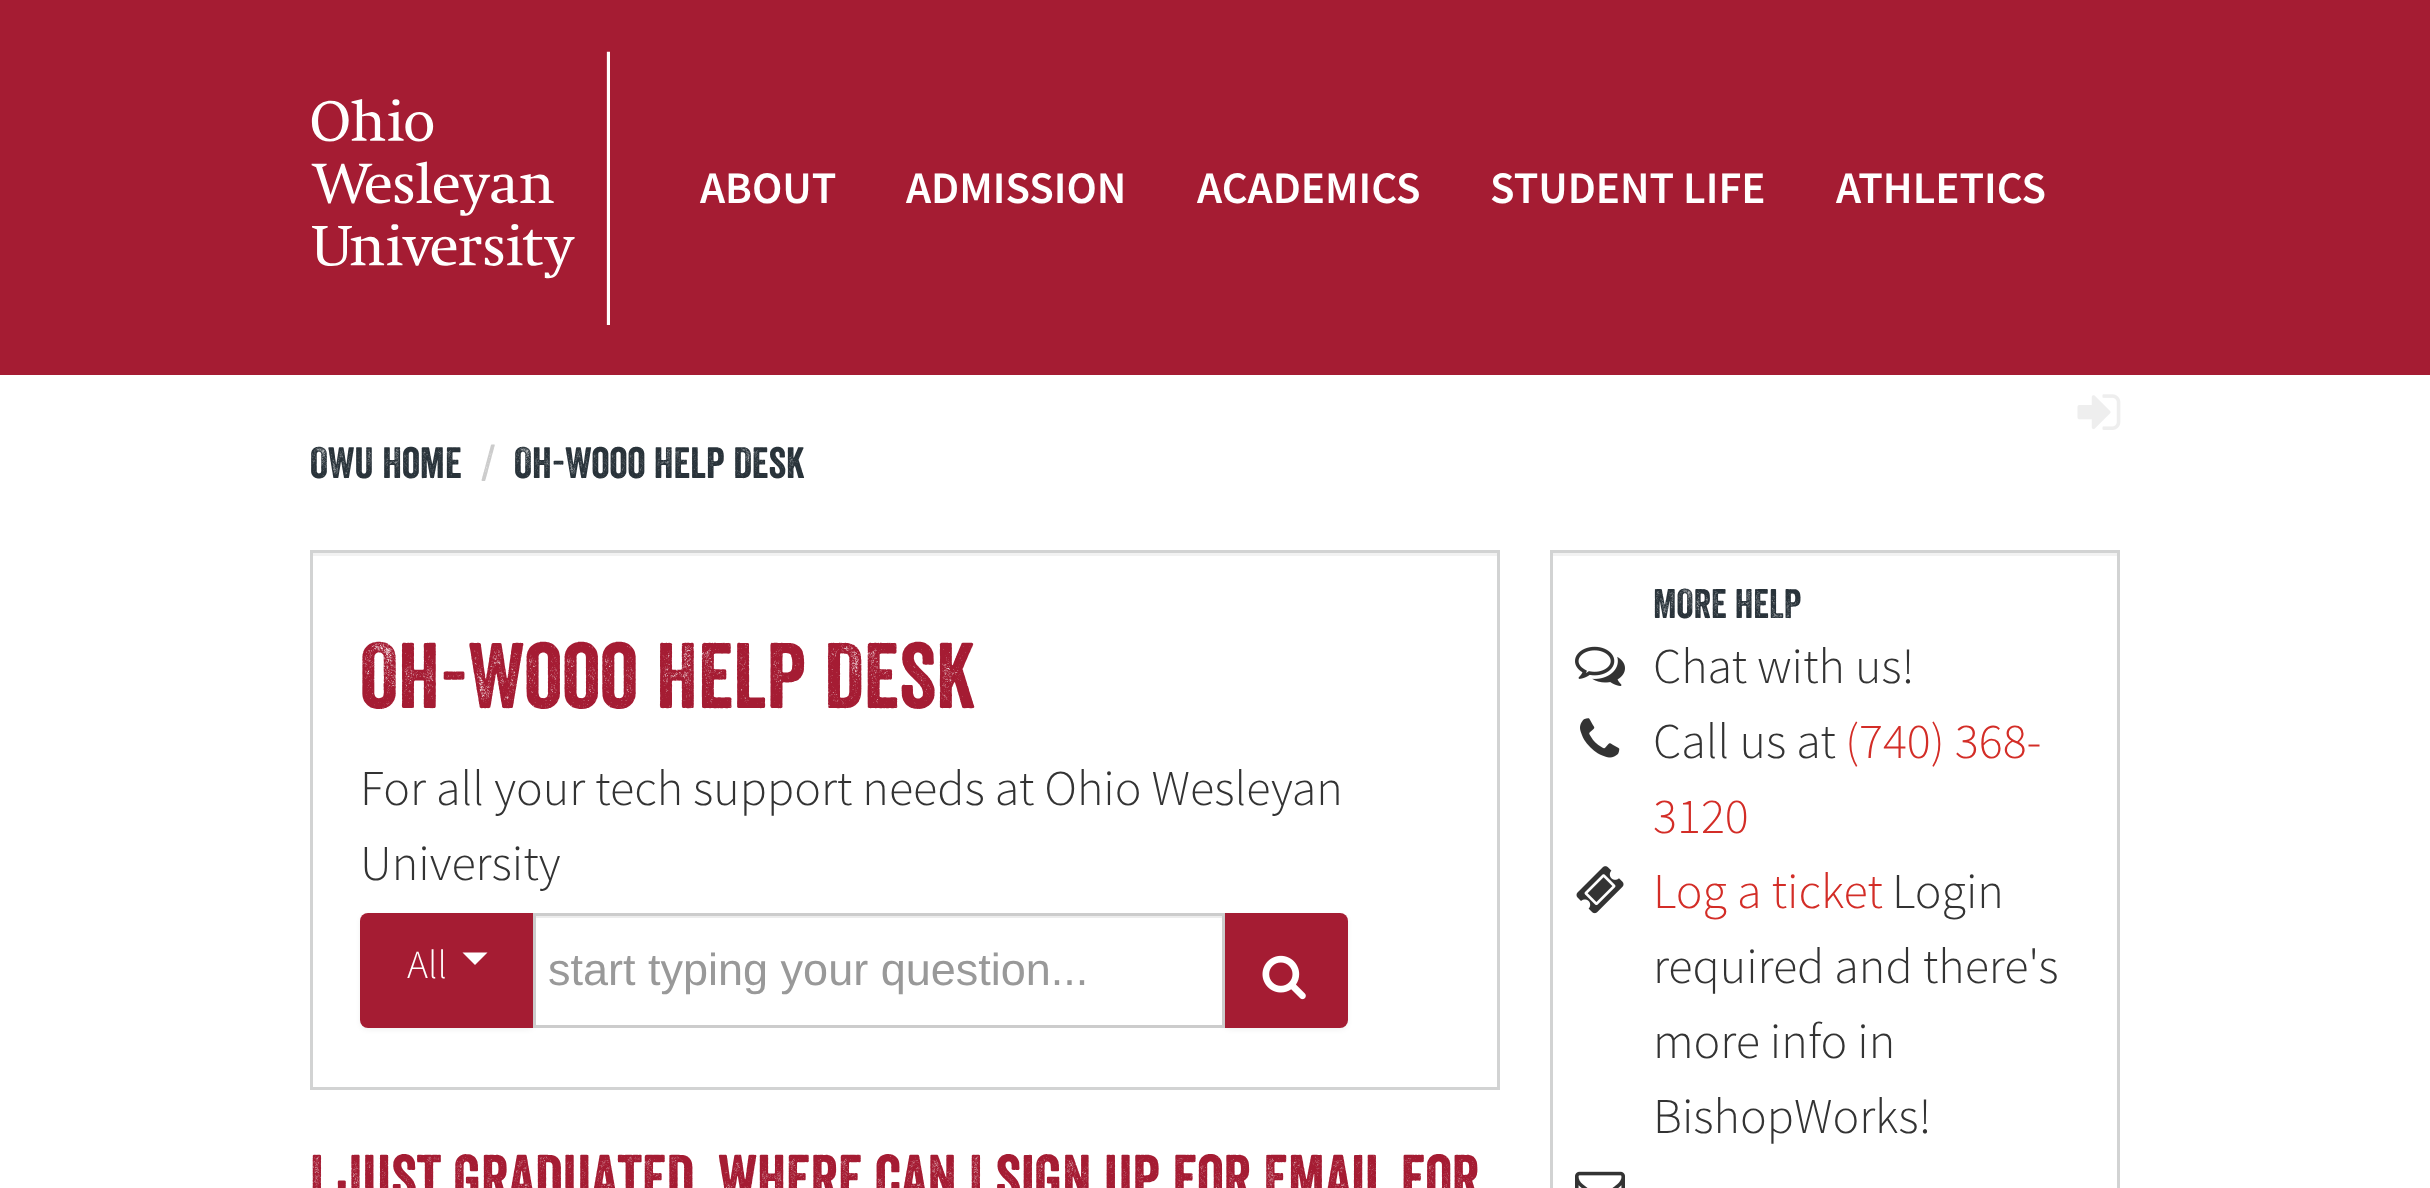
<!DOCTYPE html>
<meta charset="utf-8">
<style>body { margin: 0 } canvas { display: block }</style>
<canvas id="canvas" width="2430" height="1188"></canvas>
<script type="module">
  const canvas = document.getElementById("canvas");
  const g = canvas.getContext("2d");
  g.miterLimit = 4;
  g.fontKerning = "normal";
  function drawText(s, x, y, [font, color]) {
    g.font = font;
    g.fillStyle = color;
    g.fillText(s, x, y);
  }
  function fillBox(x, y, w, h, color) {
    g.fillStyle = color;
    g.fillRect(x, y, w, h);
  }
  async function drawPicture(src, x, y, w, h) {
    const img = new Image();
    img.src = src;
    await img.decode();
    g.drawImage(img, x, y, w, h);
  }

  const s1 = ["600 45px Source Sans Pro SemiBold", "#FFFFFF"];
  const s2 = ["42.5px 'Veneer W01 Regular'", "#29333A"];
  const s3 = ["42.5px 'Veneer W01 Regular'", "#CCCCCC"];
  const s4 = ["90px 'Veneer W01 Regular'", "#A51C33"];
  const s5 = ["300 50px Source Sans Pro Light", "#333333"];
  const s6 = ["300 40px Source Sans Pro Light", "#FFFFFF"];
  const s7 = ["45px Liberation Sans", "#999999"];
  const s8 = ["62.5px 'Veneer W01 Regular'", "#A51C33"];
  const s9 = ["40px 'Veneer W01 Regular'", "#29333A"];
  const s10 = ["300 50px Source Sans Pro Light", "#D32D27"];

  fillBox(0, 0, 2430, 1188, "#FFFFFF");
  fillBox(0, 0, 2430, 375, "#A51C33");
  await drawPicture("pic1.png", 311, 51, 299, 274);
  drawText("ABOUT", 700, 203, s1);
  drawText("ADMISSION", 906, 203, s1);
  drawText("ACADEMICS", 1197, 203, s1);
  drawText("STUDENT LIFE", 1490, 203, s1);
  drawText("ATHLETICS", 1836, 203, s1);
  await drawPicture("pic2.png", 2077, 394, 44, 36);
  drawText("OWU Home", 310, 478, s2);
  drawText("/", 483, 478, s3);
  drawText("Oh-Wooo Help Desk", 514, 478, s2);
  fillBox(313, 553, 1185, 3, "#F2F2F2");
  g.strokeStyle = "#D2D3D3";
  g.lineWidth = 3;
  g.strokeRect(311.5, 551.5, 1187, 537);
  drawText("Oh-Wooo Help Desk", 360, 708, s4);
  drawText("For all your tech support needs at Ohio Wesleyan", 360, 805, s5);
  drawText("University", 360, 880, s5);
  g.fillStyle = "rgba(0, 0, 0, 0.05)";
  g.filter = "blur(2.5px)";
  g.beginPath();
  g.roundRect(360, 915, 175, 115, 8);
  g.fill();
  g.filter = "none";
  g.fillStyle = "#A51C33";
  g.beginPath();
  g.roundRect(360, 913, 175, 115, [8, 0, 0, 8]);
  g.fill();
  drawText("All", 407, 978, s6);
  g.beginPath();
  g.moveTo(462.5, 952.5);
  g.lineTo(487.5, 952.5);
  g.lineTo(475, 965);
  g.closePath();
  g.fill();
  g.fillStyle = "rgba(0, 0, 0, 0.05)";
  g.filter = "blur(2.5px)";
  g.beginPath();
  g.roundRect(1223, 915, 125, 115, 8);
  g.fill();
  g.filter = "none";
  fillBox(536, 921, 686, 103, "#FFFFFF");
  fillBox(535, 916, 688, 2, "#ECECEC");
  g.fillStyle = "#A51C33";
  g.beginPath();
  g.roundRect(1223, 913, 125, 115, [0, 8, 8, 0]);
  g.fill();
  g.strokeStyle = "#CCCCCC";
  g.strokeRect(534.5, 914.5, 689, 112);
  drawText("start typing your question...", 548, 985, s7);
  await drawPicture("pic3.png", 1262, 955, 44, 45);
  drawText("I just graduated, where can I sign up for Email for", 310, 1200, s8);
  fillBox(1553, 553, 565, 3, "#F2F2F2");
  g.strokeStyle = "#D2D3D3";
  g.strokeRect(1551.5, 551.5, 567, 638);
  drawText("MORE HELP", 1653, 618, s9);
  await drawPicture("pic4.png", 1575, 646, 50, 40);
  drawText("Chat with us!", 1653, 683, s5);
  await drawPicture("pic5.png", 1580, 718, 40, 40);
  drawText("Call us at", 1653, 758, s5);
  drawText("(740) 368-", 1845, 758, s10);
  drawText("3120", 1653, 833, s10);
  await drawPicture("pic6.png", 1576, 866, 48, 48);
  drawText("Log a ticket", 1653, 908, s10);
  drawText("Login", 1892, 908, s5);
  drawText("required and there's", 1653, 983, s5);
  drawText("more info in", 1653, 1058, s5);
  drawText("BishopWorks!", 1653, 1133, s5);
  await drawPicture("pic7.png", 1575, 1171, 50, 17);
</script>
